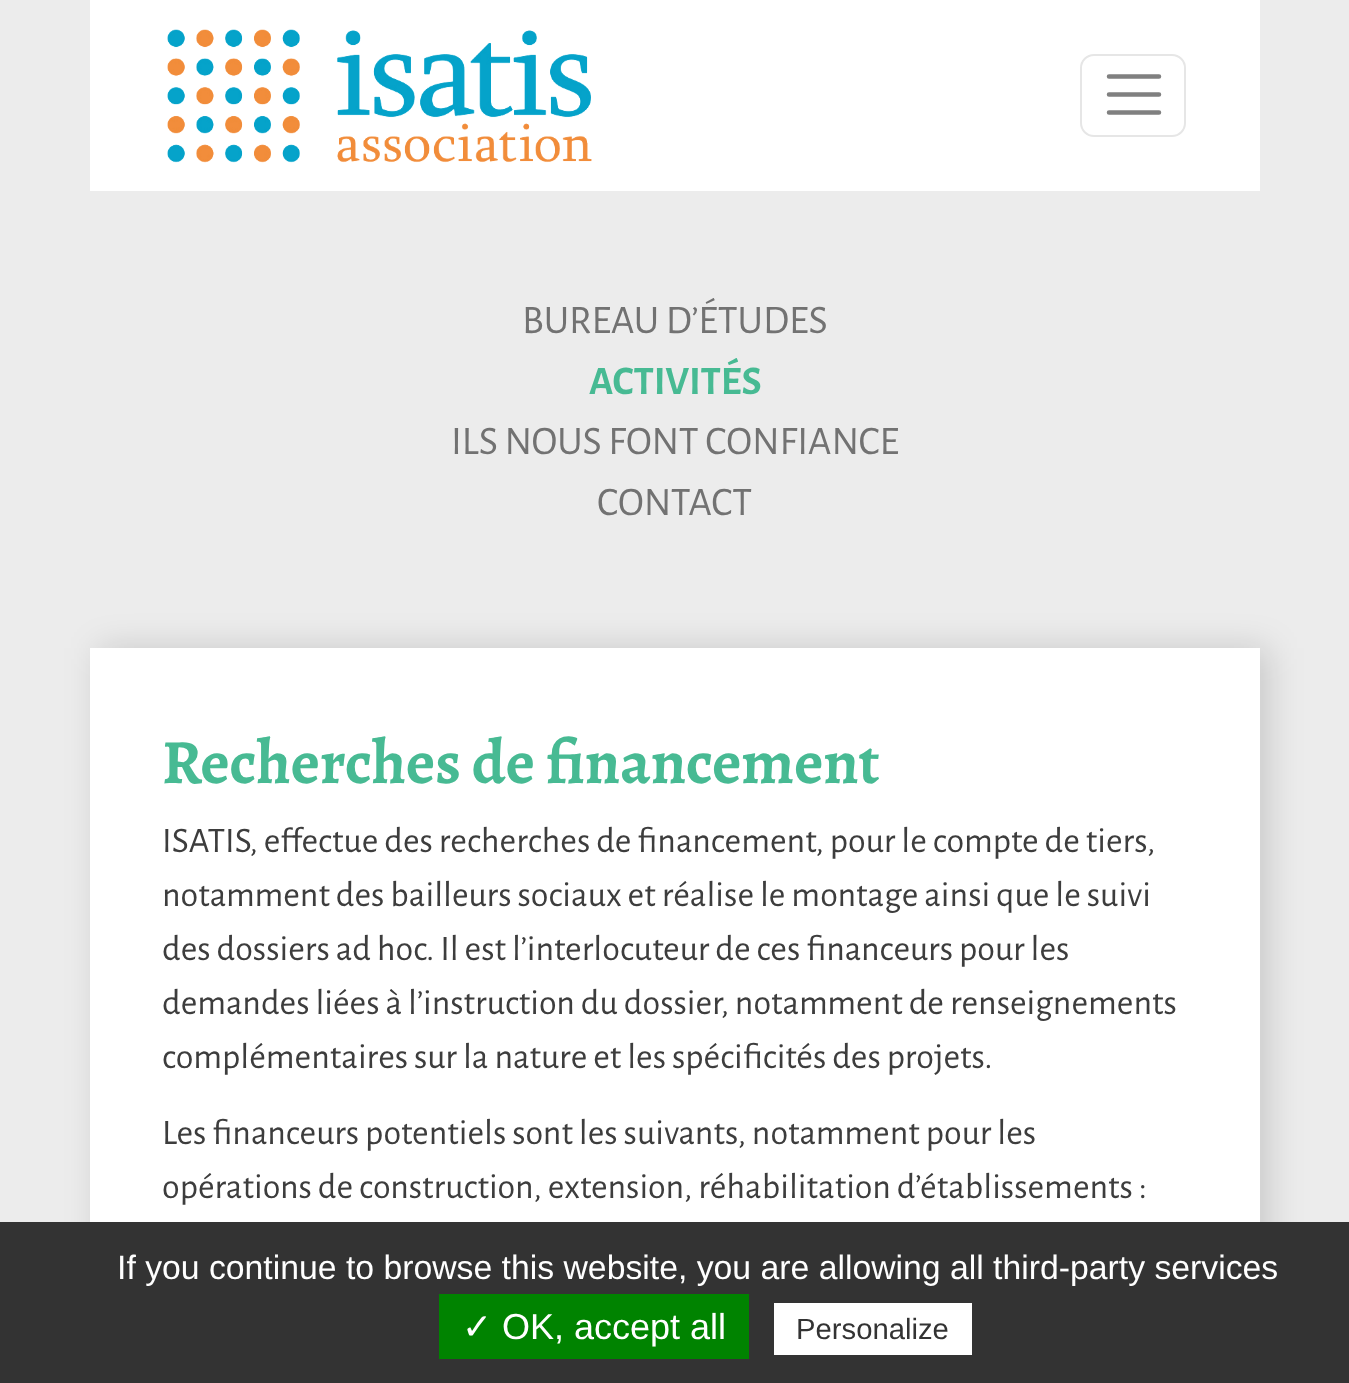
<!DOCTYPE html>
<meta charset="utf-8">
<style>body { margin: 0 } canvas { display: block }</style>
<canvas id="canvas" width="1349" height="1383"></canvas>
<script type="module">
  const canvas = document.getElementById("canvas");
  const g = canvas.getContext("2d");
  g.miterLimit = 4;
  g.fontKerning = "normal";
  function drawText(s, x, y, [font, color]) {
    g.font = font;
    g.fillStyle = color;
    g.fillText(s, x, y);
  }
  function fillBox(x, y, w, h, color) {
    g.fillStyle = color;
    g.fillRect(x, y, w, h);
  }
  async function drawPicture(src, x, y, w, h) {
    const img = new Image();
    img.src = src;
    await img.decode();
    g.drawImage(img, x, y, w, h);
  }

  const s1 = ["40.5px Alegreya Sans", "#727272"];
  const s2 = ["bold 40.5px Alegreya Sans", "#47BA93"];
  const s3 = ["bold 63px Alegreya", "#47BA93"];
  const s4 = ["36px Alegreya Sans", "#3D3D3D"];
  const s5 = ["33.75px Liberation Sans", "#FFFFFF"];
  const s6 = ["36px DejaVu Sans", "#FFFFFF"];
  const s7 = ["36px Liberation Sans", "#FFFFFF"];
  const s8 = ["29.25px Liberation Sans", "#333333"];

  fillBox(0, 0, 1349, 1383, "#ECECEC");
  fillBox(90, 0, 1170, 191, "#FFFFFF");
  await drawPicture("pic1.png", 167, 29, 425, 134);
  g.beginPath();
  g.roundRect(1081, 55, 104, 81, 13);
  g.strokeStyle = "#E6E6E6";
  g.lineWidth = 2;
  g.stroke();
  g.beginPath();
  g.moveTo(1109, 76.5);
  g.lineTo(1159, 76.5);
  g.moveTo(1109, 94.5);
  g.lineTo(1159, 94.5);
  g.moveTo(1109, 112.5);
  g.lineTo(1159, 112.5);
  g.strokeStyle = "#808080";
  g.lineWidth = 4.5;
  g.lineCap = "round";
  g.stroke();
  drawText("BUREAU D’ÉTUDES", 522, 333, s1);
  drawText("ACTIVITÉS", 589, 394, s2);
  drawText("ILS NOUS FONT CONFIANCE", 451, 454, s1);
  drawText("CONTACT", 597, 515, s1);
  g.fillStyle = "rgba(0, 0, 0, 0.15)";
  g.filter = "blur(17px)";
  g.beginPath();
  g.rect(99, 648, 1170, 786);
  g.fill();
  g.filter = "none";
  fillBox(90, 648, 1170, 574, "#FFFFFF");
  drawText("Recherches de financement", 162, 783, s3);
  drawText("ISATIS, effectue des recherches de financement, pour le compte de tiers,", 162, 852, s4);
  drawText("notamment des bailleurs sociaux et réalise le montage ainsi que le suivi", 162, 906, s4);
  drawText("des dossiers ad hoc. Il est l’interlocuteur de ces financeurs pour les", 162, 960, s4);
  drawText("demandes liées à l’instruction du dossier, notamment de renseignements", 162, 1014, s4);
  drawText("complémentaires sur la nature et les spécificités des projets.", 162, 1068, s4);
  drawText("Les financeurs potentiels sont les suivants, notamment pour les", 162, 1144, s4);
  drawText("opérations de construction, extension, réhabilitation d’établissements :", 162, 1198, s4);
  fillBox(0, 1222, 1349, 161, "#333333");
  drawText("If you continue to browse this website, you are allowing all third-party services", 117, 1279, s5);
  fillBox(439, 1294, 310, 65, "#008300");
  drawText("✓", 462, 1339, s6);
  drawText("OK, accept all", 502, 1339, s7);
  fillBox(774, 1303, 198, 52, "#FFFFFF");
  drawText("Personalize", 796, 1339, s8);
</script>
